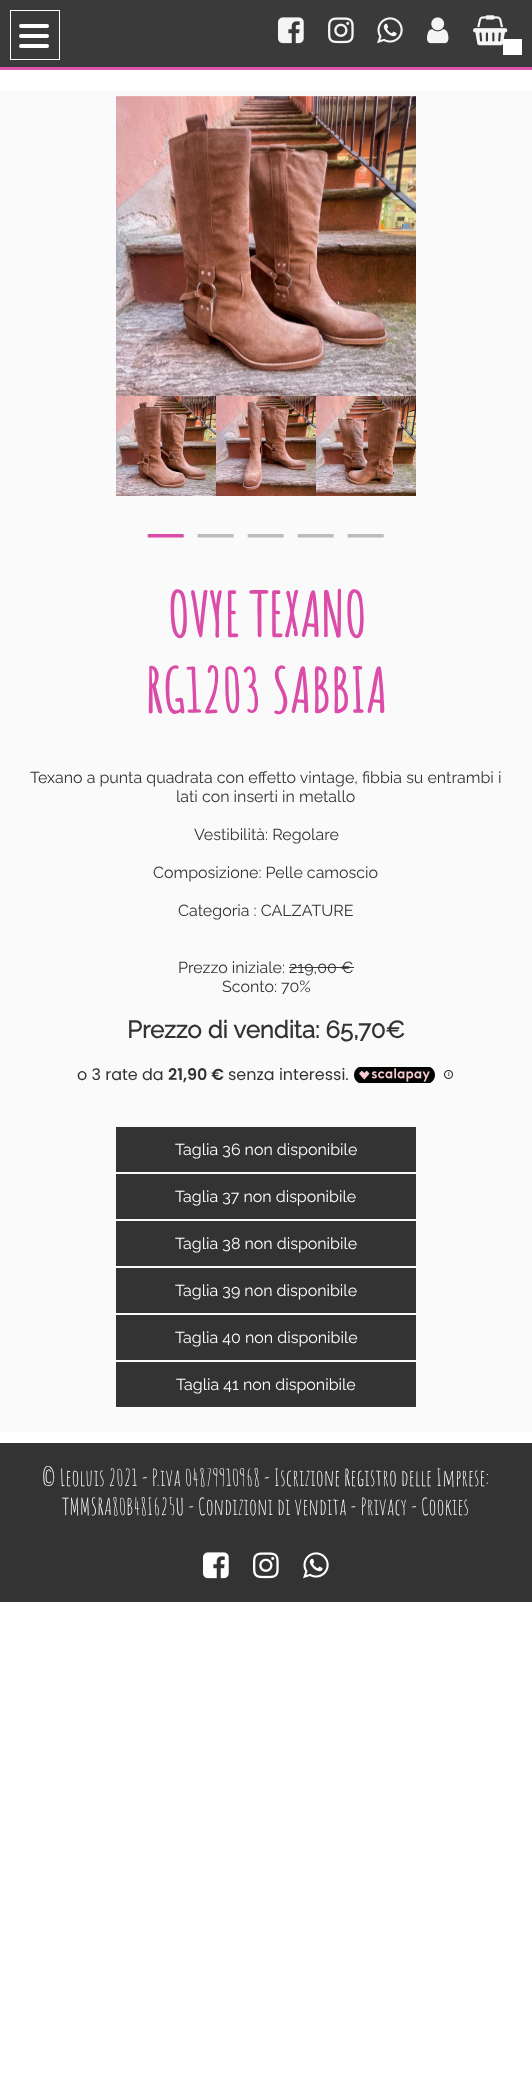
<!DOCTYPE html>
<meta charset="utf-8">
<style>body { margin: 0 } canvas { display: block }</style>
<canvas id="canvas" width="532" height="2090"></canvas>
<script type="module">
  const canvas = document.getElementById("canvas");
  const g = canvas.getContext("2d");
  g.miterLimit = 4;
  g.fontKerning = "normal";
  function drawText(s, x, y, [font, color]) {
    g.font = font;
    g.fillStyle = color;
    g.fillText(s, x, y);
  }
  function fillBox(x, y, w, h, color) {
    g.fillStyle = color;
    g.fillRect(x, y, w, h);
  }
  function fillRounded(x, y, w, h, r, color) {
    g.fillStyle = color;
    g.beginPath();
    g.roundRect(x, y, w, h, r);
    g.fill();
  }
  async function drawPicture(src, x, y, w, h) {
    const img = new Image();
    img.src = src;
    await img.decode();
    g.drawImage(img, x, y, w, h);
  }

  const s1 = ["50px Liberation Serif", "#DB4CA9"];
  const s2 = ["50px Liberation Serif", "#BCBCBC"];
  const s3 = ["bold 60px Amatic SC", "#DB4CA9"];
  const s4 = ["100 16px Raleway", "#333333"];
  const s5 = ["bold 24px Raleway", "#333333"];
  const s6 = ["16px Poppins", "#333333"];
  const s7 = ["600 16px Poppins", "#333333"];
  const s8 = ["100 16px Raleway", "#FFFFFF"];
  const s9 = ["23px Amatic SC", "#FFFFFF"];

  fillBox(0, 0, 532, 2090, "#FFFFFF");
  fillBox(0, 0, 532, 67, "#3A3A3A");
  fillBox(0, 67, 532, 3, "#DD55AD");
  g.strokeStyle = "#FFFFFF";
  g.strokeRect(10.5, 10.5, 49, 49);
  fillRounded(19, 24, 30, 4, 2, "#FFFFFF");
  fillRounded(19, 34, 30, 4, 2, "#FFFFFF");
  fillRounded(19, 44, 30, 4, 2, "#FFFFFF");
  await drawPicture("pic1.png", 278, 17, 26, 27);
  await drawPicture("pic2.png", 328, 17, 26, 27);
  await drawPicture("pic3.png", 377, 17, 26, 27);
  await drawPicture("pic4.png", 427, 17, 22, 27);
  await drawPicture("pic5.png", 473, 15, 35, 31);
  fillBox(503, 39, 19, 16, "#FFFFFF");
  fillBox(0, 91, 532, 1341, "#FAFAFA");
  await drawPicture("pic6.png", 116, 96, 300, 300);
  await drawPicture("pic7.png", 116, 396, 100, 100);
  await drawPicture("pic8.png", 216, 396, 100, 100);
  await drawPicture("pic9.png", 316, 396, 100, 100);
  drawText("─", 148, 551, s1);
  drawText("─", 198, 551, s2);
  drawText("─", 248, 551, s2);
  drawText("─", 298, 551, s2);
  drawText("─", 348, 551, s2);
  drawText("OVYE TEXANO", 167, 637, s3);
  drawText("RG1203 SABBIA", 145, 713, s3);
  drawText("Texano a punta quadrata con effetto vintage, fibbia su entrambi i", 30, 783, s4);
  drawText("lati con inserti in metallo", 176, 802, s4);
  drawText("Vestibilità: Regolare", 194, 840, s4);
  drawText("Composizione: Pelle camoscio", 153, 878, s4);
  drawText("Categoria : CALZATURE", 178, 916, s4);
  drawText("Prezzo iniziale: 219,00 €", 178, 973, s4);
  fillBox(289, 967, 65, 1, "#333333");
  drawText("Sconto: 70%", 222, 992, s4);
  drawText("Prezzo di vendita: 65,70€", 127, 1038, s5);
  drawText("o 3 rate da", 77, 1080, s6);
  drawText("21,90 €", 168, 1080, s7);
  drawText("senza interessi.", 228, 1080, s6);
  await drawPicture("pic10.png", 354, 1067, 81, 16);
  await drawPicture("pic11.png", 444, 1070, 9, 9);
  fillBox(116, 1127, 300, 45, "#333333");
  drawText("Taglia 36 non disponibile", 175, 1155, s8);
  fillBox(116, 1174, 300, 45, "#333333");
  drawText("Taglia 37 non disponibile", 175, 1202, s8);
  fillBox(116, 1221, 300, 45, "#333333");
  drawText("Taglia 38 non disponibile", 175, 1249, s8);
  fillBox(116, 1268, 300, 45, "#333333");
  drawText("Taglia 39 non disponibile", 175, 1296, s8);
  fillBox(116, 1315, 300, 45, "#333333");
  drawText("Taglia 40 non disponibile", 175, 1343, s8);
  fillBox(116, 1362, 300, 45, "#333333");
  drawText("Taglia 41 non disponibile", 176, 1390, s8);
  fillBox(0, 1443, 532, 159, "#333333");
  drawText("© Leoluis 2021 - P.iva 04879910968 - Iscrizione Registro delle Imprese:", 42, 1486, s9);
  drawText("TMMSRA80B48I625U - Condizioni di vendita - Privacy - Cookies", 62, 1515, s9);
  await drawPicture("pic12.png", 203, 1552, 26, 27);
  await drawPicture("pic13.png", 253, 1552, 26, 27);
  await drawPicture("pic14.png", 303, 1552, 26, 27);
</script>
